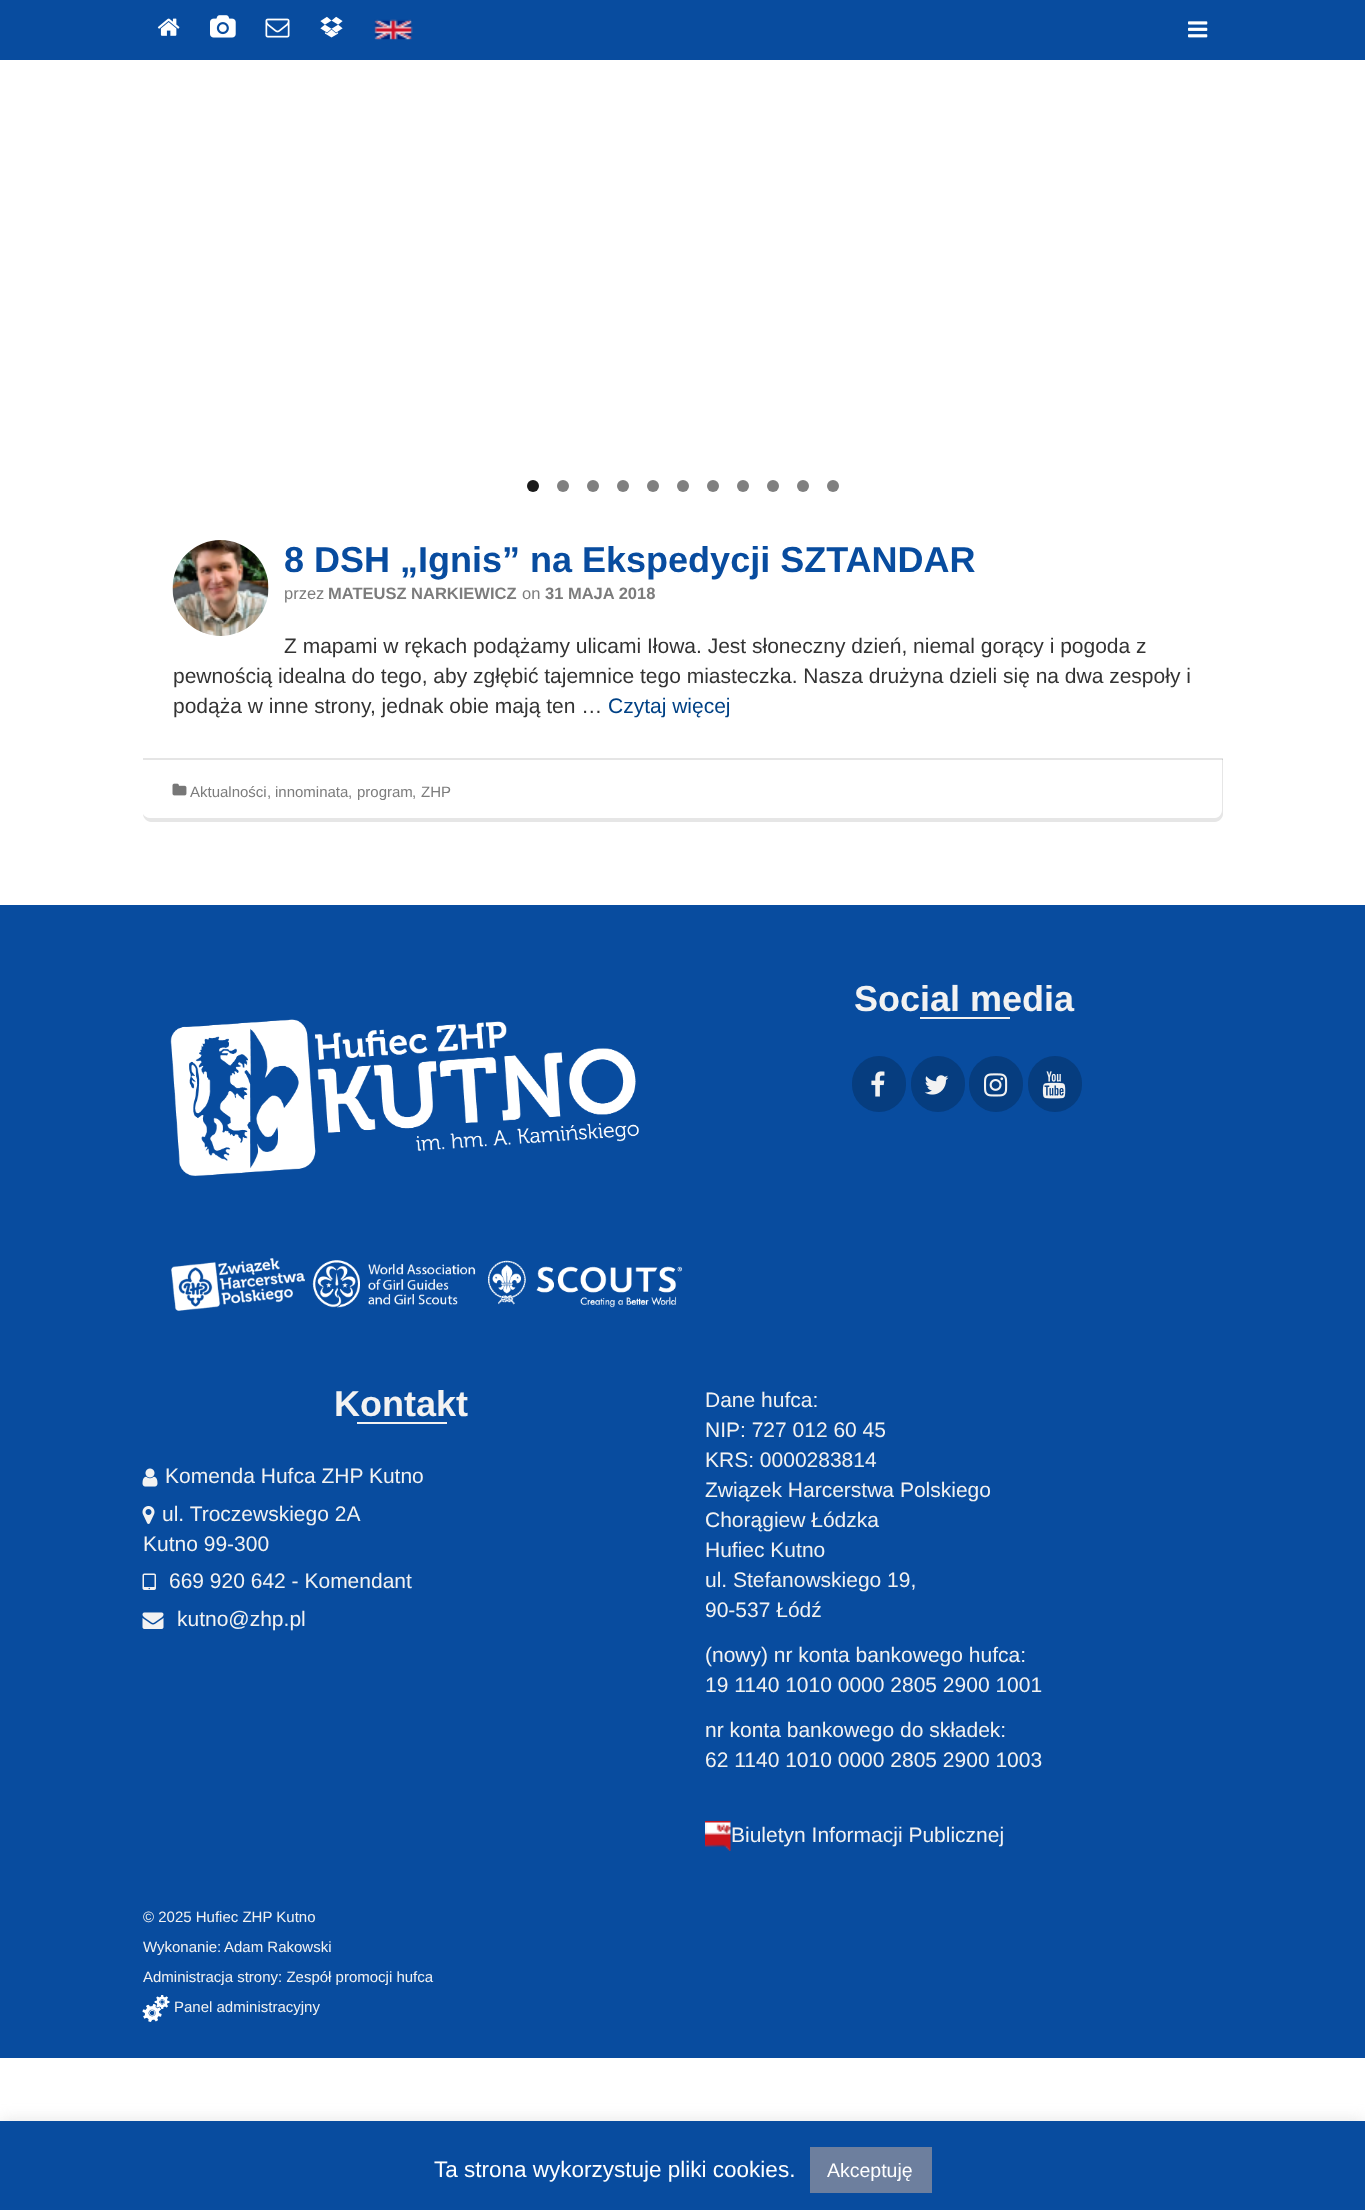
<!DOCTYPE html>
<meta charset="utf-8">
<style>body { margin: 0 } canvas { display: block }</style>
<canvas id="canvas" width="1365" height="2210"></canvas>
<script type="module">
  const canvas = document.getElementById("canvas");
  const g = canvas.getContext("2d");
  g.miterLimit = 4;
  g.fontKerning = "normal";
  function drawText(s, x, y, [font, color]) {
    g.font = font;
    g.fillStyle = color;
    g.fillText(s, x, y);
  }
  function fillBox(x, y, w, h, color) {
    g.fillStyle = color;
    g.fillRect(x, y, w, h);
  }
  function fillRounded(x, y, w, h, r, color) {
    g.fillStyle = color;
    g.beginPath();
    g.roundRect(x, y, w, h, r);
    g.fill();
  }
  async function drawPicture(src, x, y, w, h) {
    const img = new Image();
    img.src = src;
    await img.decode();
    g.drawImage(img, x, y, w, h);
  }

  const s1 = ["bold 36px Liberation Sans", "#084C9F"];
  const s2 = ["16.5px Liberation Sans", "#7C7C7C"];
  const s3 = ["bold 16.5px Liberation Sans", "#7C7C7C"];
  const s4 = ["21px Liberation Sans", "#333333"];
  const s5 = ["21px Liberation Sans", "#004185"];
  const s6 = ["15px Liberation Sans", "#7C7C7C"];
  const s7 = ["bold 36px Liberation Sans", "#F2F2F2"];
  const s8 = ["21px Liberation Sans", "#F2F2F2"];
  const s9 = ["15px Liberation Sans", "#F2F2F2"];
  const s10 = ["22.5px Liberation Sans", "#FFFFFF"];
  const s11 = ["19.5px Liberation Sans", "#FFFFFF"];

  fillBox(0, 0, 1365, 2210, "#FFFFFF");
  fillBox(0, 0, 1365, 60, "#084C9F");
  await drawPicture("pic1.png", 157, 18, 23, 18);
  await drawPicture("pic2.png", 210, 15, 26, 23);
  await drawPicture("pic3.png", 265, 18, 25, 20);
  await drawPicture("pic4.png", 320, 16, 23, 22);
  await drawPicture("pic5.png", 374, 19, 39, 21);
  await drawPicture("pic6.png", 1188, 21, 20, 17);
  g.fillStyle = "#1A1A1A";
  g.beginPath();
  g.arc(533, 486, 6, 0, Math.PI * 2);
  g.fill();
  g.fillStyle = "#808080";
  g.beginPath();
  g.arc(563, 486, 6, 0, Math.PI * 2);
  g.fill();
  g.beginPath();
  g.arc(593, 486, 6, 0, Math.PI * 2);
  g.fill();
  g.beginPath();
  g.arc(623, 486, 6, 0, Math.PI * 2);
  g.fill();
  g.beginPath();
  g.arc(653, 486, 6, 0, Math.PI * 2);
  g.fill();
  g.beginPath();
  g.arc(683, 486, 6, 0, Math.PI * 2);
  g.fill();
  g.beginPath();
  g.arc(713, 486, 6, 0, Math.PI * 2);
  g.fill();
  g.beginPath();
  g.arc(743, 486, 6, 0, Math.PI * 2);
  g.fill();
  g.beginPath();
  g.arc(773, 486, 6, 0, Math.PI * 2);
  g.fill();
  g.beginPath();
  g.arc(803, 486, 6, 0, Math.PI * 2);
  g.fill();
  g.beginPath();
  g.arc(833, 486, 6, 0, Math.PI * 2);
  g.fill();
  await drawPicture("pic7.png", 172, 540, 97, 96);
  drawText("8 DSH „Ignis” na Ekspedycji SZTANDAR", 284, 572, s1);
  drawText("przez", 284, 599, s2);
  drawText("MATEUSZ NARKIEWICZ", 328, 599, s3);
  drawText("on", 522, 599, s2);
  drawText("31 MAJA 2018", 545, 599, s3);
  drawText("Z mapami w rękach podążamy ulicami Iłowa. Jest słoneczny dzień, niemal gorący i pogoda z", 284, 653, s4);
  drawText("pewnością idealna do tego, aby zgłębić tajemnice tego miasteczka. Nasza drużyna dzieli się na dwa zespoły i", 173, 683, s4);
  drawText("podąża w inne strony, jednak obie mają ten …", 173, 713, s4);
  drawText("Czytaj więcej", 608, 713, s5);
  g.fillStyle = "#E6E6E6";
  g.beginPath();
  g.moveTo(143, 814);
  g.bezierCurveTo(143, 818, 147, 822, 151, 822);
  g.lineTo(1215, 822);
  g.bezierCurveTo(1219, 822, 1223, 818, 1223, 814);
  g.lineTo(1223, 759);
  g.lineTo(1222, 759);
  g.lineTo(1222, 810);
  g.bezierCurveTo(1222, 814, 1219, 818, 1215, 818);
  g.lineTo(150, 818);
  g.bezierCurveTo(147, 818, 144, 816, 143, 814);
  g.closePath();
  g.fill();
  fillBox(143, 758, 1080, 2, "rgba(0, 0, 0, 0.1)");
  await drawPicture("pic8.png", 172, 783, 15, 13);
  drawText("Aktualności", 190, 797, s6);
  drawText(",", 267, 797, s6);
  drawText("innominata", 275, 797, s6);
  drawText(",", 348, 797, s6);
  drawText("program", 357, 797, s6);
  drawText(",", 412, 797, s6);
  drawText("ZHP", 421, 797, s6);
  fillBox(0, 905, 1365, 1153, "#084C9F");
  drawText("Social media", 854, 1011, s7);
  fillBox(920, 1017, 90, 2, "#F2F2F2");
  fillRounded(852, 1056, 54, 56, 27, "#063D7F");
  await drawPicture("pic9.png", 871, 1071, 14, 26);
  fillRounded(911, 1056, 54, 56, 27, "#063D7F");
  await drawPicture("pic10.png", 924, 1075, 25, 20);
  fillRounded(969, 1056, 54, 56, 27, "#063D7F");
  await drawPicture("pic11.png", 984, 1073, 24, 24);
  fillRounded(1028, 1056, 54, 56, 27, "#063D7F");
  await drawPicture("pic12.png", 1042, 1071, 24, 28);
  await drawPicture("pic13.png", 170, 1019, 469, 157);
  await drawPicture("pic14.png", 171, 1258, 512, 53);
  drawText("Kontakt", 334, 1416, s7);
  fillBox(357, 1422, 90, 2, "#F2F2F2");
  await drawPicture("pic15.png", 142, 1468, 16, 19);
  drawText("Komenda Hufca ZHP Kutno", 165, 1483, s8);
  await drawPicture("pic16.png", 142, 1506, 13, 18);
  drawText("ul. Troczewskiego 2A", 162, 1521, s8);
  drawText("Kutno 99-300", 143, 1551, s8);
  await drawPicture("pic17.png", 142, 1573, 14, 17);
  drawText("669 920 642 - Komendant", 169, 1588, s8);
  await drawPicture("pic18.png", 142, 1612, 22, 17);
  drawText("kutno@zhp.pl", 177, 1626, s8);
  drawText("Dane hufca:", 705, 1407, s8);
  drawText("NIP: 727 012 60 45", 705, 1437, s8);
  drawText("KRS: 0000283814", 705, 1467, s8);
  drawText("Związek Harcerstwa Polskiego", 705, 1497, s8);
  drawText("Chorągiew Łódzka", 705, 1527, s8);
  drawText("Hufiec Kutno", 705, 1557, s8);
  drawText("ul. Stefanowskiego 19,", 705, 1587, s8);
  drawText("90-537 Łódź", 705, 1617, s8);
  drawText("(nowy) nr konta bankowego hufca:", 705, 1662, s8);
  drawText("19 1140 1010 0000 2805 2900 1001", 705, 1692, s8);
  drawText("nr konta bankowego do składek:", 705, 1737, s8);
  drawText("62 1140 1010 0000 2805 2900 1003", 705, 1767, s8);
  await drawPicture("pic19.png", 705, 1821, 26, 30);
  drawText("Biuletyn Informacji Publicznej", 731, 1842, s8);
  drawText("© 2025 Hufiec ZHP Kutno", 143, 1922, s9);
  drawText("Wykonanie:", 143, 1952, s9);
  drawText("Adam Rakowski", 224, 1952, s9);
  drawText("Administracja strony: Zespół promocji hufca", 143, 1982, s9);
  await drawPicture("pic20.png", 142, 1995, 28, 27);
  drawText("Panel administracyjny", 174, 2012, s9);
  g.fillStyle = "rgba(172, 171, 171, 0.3)";
  g.filter = "blur(7.5px)";
  g.beginPath();
  g.rect(0, 2120, 1365, 90);
  g.fill();
  g.filter = "none";
  fillBox(0, 2121, 1365, 89, "#084C9F");
  drawText("Ta strona wykorzystuje pliki cookies.", 434, 2177, s10);
  fillBox(810, 2147, 122, 46, "#6D7F9E");
  drawText("Akceptuję", 827, 2177, s11);
</script>
